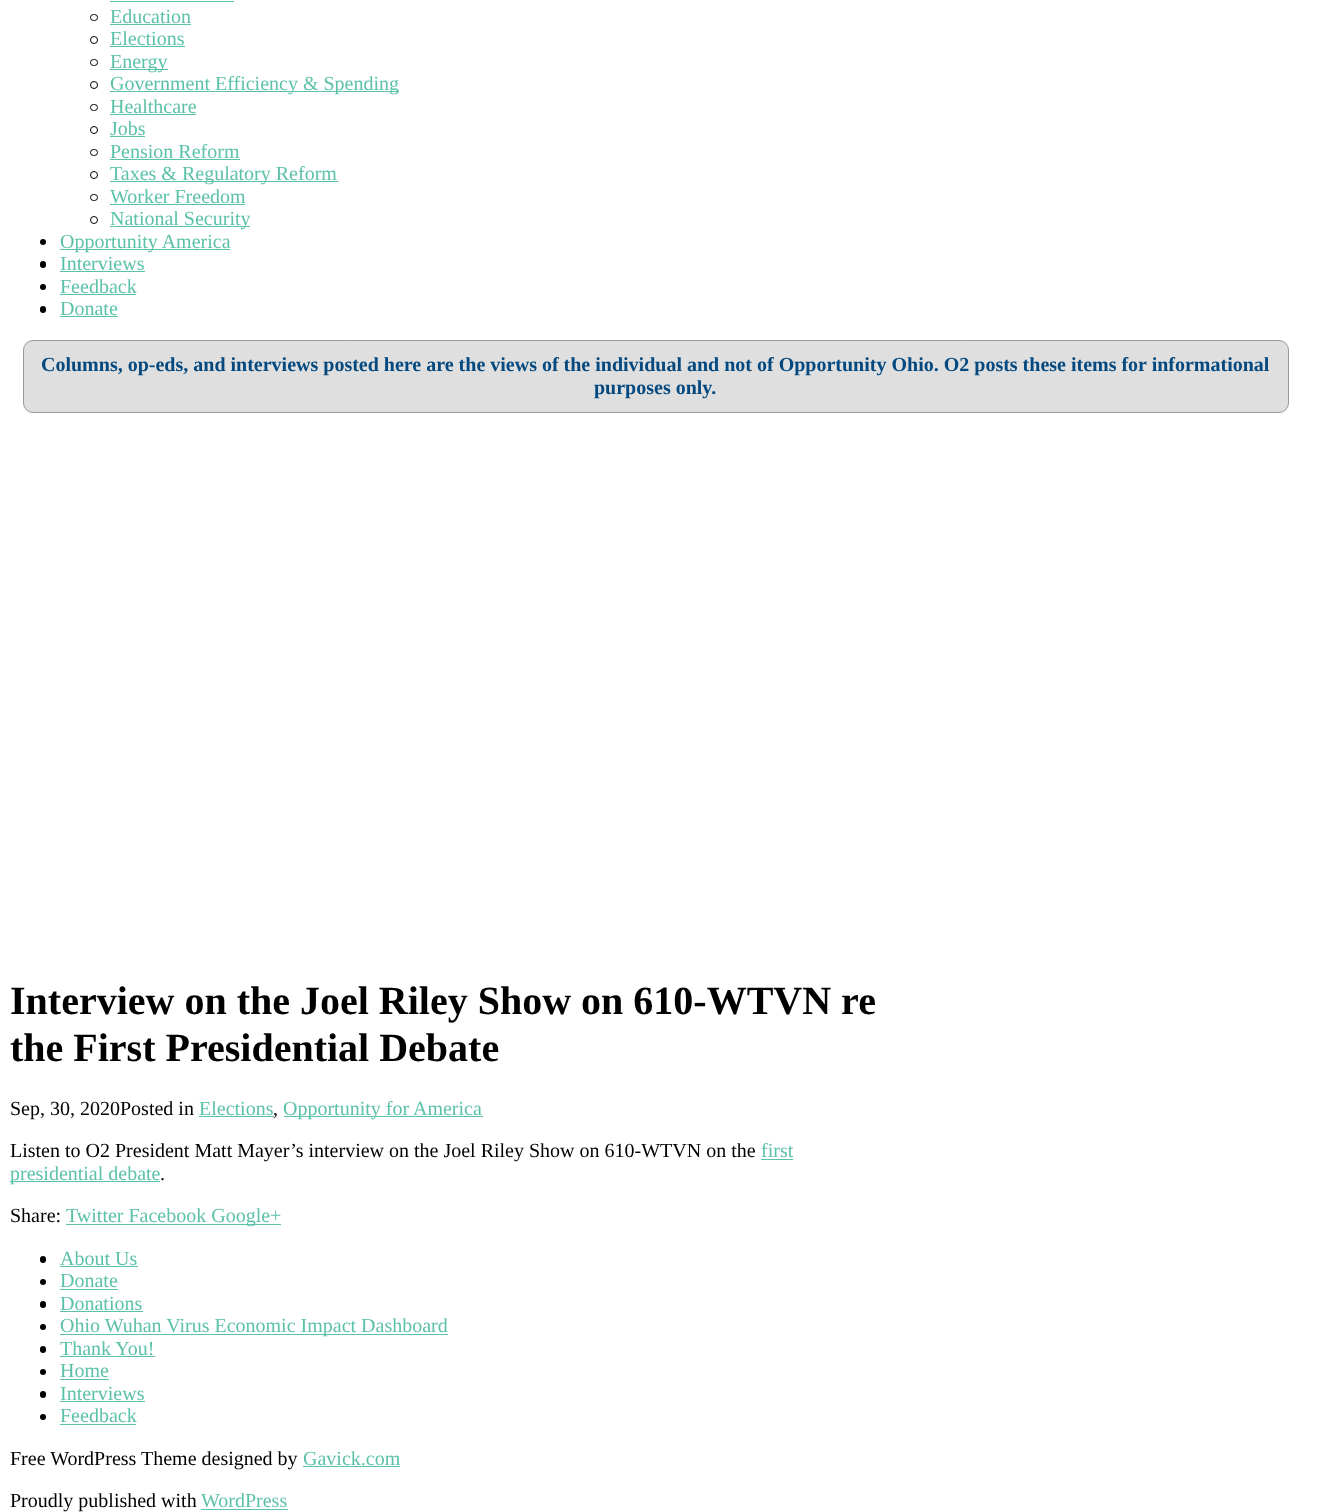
<!DOCTYPE html>
<meta charset="utf-8">
<style>body { margin: 0 } canvas { display: block }</style>
<canvas id="canvas" width="1323" height="1512"></canvas>
<script type="module">
  const canvas = document.getElementById("canvas");
  const g = canvas.getContext("2d");
  g.miterLimit = 4;
  g.fontKerning = "normal";
  function drawText(s, x, y, [font, color]) {
    g.font = font;
    g.fillStyle = color;
    g.fillText(s, x, y);
  }
  function fillBox(x, y, w, h, color) {
    g.fillStyle = color;
    g.fillRect(x, y, w, h);
  }
  function fillRounded(x, y, w, h, r, color) {
    g.fillStyle = color;
    g.beginPath();
    g.roundRect(x, y, w, h, r);
    g.fill();
  }

  const s1 = ["20px Liberation Serif", "#5CC1A9"];
  const s2 = ["bold 20px Liberation Serif", "#03497F"];
  const s3 = ["bold 40px Liberation Serif", "#000000"];
  const s4 = ["20px Liberation Serif", "#000000"];

  fillBox(0, 0, 1323, 1512, "#FFFFFF");
  fillBox(110, 1, 124, 1, "#5CC1A9");
  g.beginPath();
  g.roundRect(90.5, 14.5, 7, 6, 3);
  g.strokeStyle = "#000000";
  g.stroke();
  drawText("Education", 110, 23, s1);
  fillBox(110, 24, 81, 1, "#5CC1A9");
  g.beginPath();
  g.arc(94, 40, 3.5, 0, Math.PI * 2);
  g.stroke();
  drawText("Elections", 110, 45, s1);
  fillBox(110, 46, 75, 1, "#5CC1A9");
  g.beginPath();
  g.roundRect(90.5, 59.5, 7, 6, 3);
  g.stroke();
  fillBox(110, 69, 58, 1, "#5CC1A9");
  drawText("Energy", 110, 68, s1);
  g.beginPath();
  g.arc(94, 85, 3.5, 0, Math.PI * 2);
  g.stroke();
  fillBox(110, 91, 289, 1, "#5CC1A9");
  drawText("Government Efficiency & Spending", 110, 90, s1);
  g.beginPath();
  g.roundRect(90.5, 104.5, 7, 6, 3);
  g.stroke();
  drawText("Healthcare", 110, 113, s1);
  fillBox(110, 114, 86, 1, "#5CC1A9");
  g.beginPath();
  g.arc(94, 130, 3.5, 0, Math.PI * 2);
  g.stroke();
  drawText("Jobs", 110, 135, s1);
  fillBox(110, 136, 35, 1, "#5CC1A9");
  g.beginPath();
  g.roundRect(90.5, 149.5, 7, 6, 3);
  g.stroke();
  drawText("Pension Reform", 110, 158, s1);
  fillBox(110, 159, 130, 1, "#5CC1A9");
  g.beginPath();
  g.arc(94, 175, 3.5, 0, Math.PI * 2);
  g.stroke();
  fillBox(110, 181, 228, 1, "#5CC1A9");
  drawText("Taxes & Regulatory Reform", 110, 180, s1);
  g.beginPath();
  g.roundRect(90.5, 194.5, 7, 6, 3);
  g.stroke();
  drawText("Worker Freedom", 110, 203, s1);
  fillBox(110, 204, 135, 1, "#5CC1A9");
  g.beginPath();
  g.arc(94, 220, 3.5, 0, Math.PI * 2);
  g.stroke();
  fillBox(110, 226, 140, 1, "#5CC1A9");
  drawText("National Security", 110, 225, s1);
  g.fillStyle = "#000000";
  g.beginPath();
  g.arc(43, 242, 3, 0, Math.PI * 2);
  g.fill();
  fillBox(60, 249, 170, 1, "#5CC1A9");
  drawText("Opportunity America", 60, 248, s1);
  fillRounded(40, 261, 6, 7, 3, "#000000");
  drawText("Interviews", 60, 270, s1);
  fillBox(60, 271, 85, 1, "#5CC1A9");
  g.fillStyle = "#000000";
  g.beginPath();
  g.arc(43, 287, 3, 0, Math.PI * 2);
  g.fill();
  drawText("Feedback", 60, 293, s1);
  fillBox(60, 294, 76, 1, "#5CC1A9");
  fillRounded(40, 306, 6, 7, 3, "#000000");
  drawText("Donate", 60, 315, s1);
  fillBox(60, 316, 58, 1, "#5CC1A9");
  g.fillStyle = "#DFDFDF";
  g.beginPath();
  g.roundRect(23.5, 340.5, 1265, 72, 9.5);
  g.fill();
  g.strokeStyle = "#999999";
  g.stroke();
  drawText("Columns, op-eds, and interviews posted here are the views of the individual and not of Opportunity Ohio. O2 posts these items for informational", 41, 371, s2);
  drawText("purposes only.", 594, 394, s2);
  drawText("Interview on the Joel Riley Show on 610-WTVN re", 10, 1014, s3);
  drawText("the First Presidential Debate", 10, 1061, s3);
  drawText("Sep, 30, 2020Posted in", 10, 1115, s4);
  drawText("Elections", 199, 1115, s1);
  drawText(",", 273, 1115, s4);
  fillBox(199, 1116, 75, 1, "#5CC1A9");
  fillBox(284, 1116, 199, 1, "#5CC1A9");
  drawText("Opportunity for America", 283, 1115, s1);
  drawText("Listen to O2 President Matt Mayer’s interview on the Joel Riley Show on 610-WTVN on the", 10, 1157, s4);
  drawText("first", 761, 1157, s1);
  fillBox(761, 1159, 32, 1, "#5CC1A9");
  fillBox(10, 1181, 150, 1, "#5CC1A9");
  drawText("presidential debate", 10, 1180, s1);
  drawText(".", 160, 1180, s4);
  drawText("Share:", 10, 1222, s4);
  fillBox(66, 1224, 215, 1, "#5CC1A9");
  drawText("Twitter Facebook Google+", 66, 1222, s1);
  fillRounded(40, 1256, 6, 7, 3, "#000000");
  drawText("About Us", 60, 1265, s1);
  fillBox(60, 1266, 78, 1, "#5CC1A9");
  g.fillStyle = "#000000";
  g.beginPath();
  g.arc(43, 1282, 3, 0, Math.PI * 2);
  g.fill();
  drawText("Donate", 60, 1287, s1);
  fillBox(60, 1289, 58, 1, "#5CC1A9");
  fillRounded(40, 1301, 6, 7, 3, "#000000");
  drawText("Donations", 60, 1310, s1);
  fillBox(60, 1311, 83, 1, "#5CC1A9");
  g.fillStyle = "#000000";
  g.beginPath();
  g.arc(43, 1327, 3, 0, Math.PI * 2);
  g.fill();
  fillBox(60, 1334, 388, 1, "#5CC1A9");
  drawText("Ohio Wuhan Virus Economic Impact Dashboard", 60, 1332, s1);
  fillRounded(40, 1346, 6, 7, 3, "#000000");
  drawText("Thank You!", 60, 1355, s1);
  fillBox(60, 1356, 95, 1, "#5CC1A9");
  g.fillStyle = "#000000";
  g.beginPath();
  g.arc(43, 1372, 3, 0, Math.PI * 2);
  g.fill();
  drawText("Home", 60, 1377, s1);
  fillBox(60, 1379, 49, 1, "#5CC1A9");
  fillRounded(40, 1391, 6, 7, 3, "#000000");
  drawText("Interviews", 60, 1400, s1);
  fillBox(60, 1401, 85, 1, "#5CC1A9");
  g.fillStyle = "#000000";
  g.beginPath();
  g.arc(43, 1417, 3, 0, Math.PI * 2);
  g.fill();
  drawText("Feedback", 60, 1422, s1);
  fillBox(60, 1424, 76, 1, "#5CC1A9");
  drawText("Free WordPress Theme designed by", 10, 1465, s4);
  drawText("Gavick.com", 303, 1465, s1);
  fillBox(303, 1466, 97, 1, "#5CC1A9");
  drawText("Proudly published with", 10, 1507, s4);
  drawText("WordPress", 201, 1507, s1);
  fillBox(201, 1509, 87, 1, "#5CC1A9");
</script>
